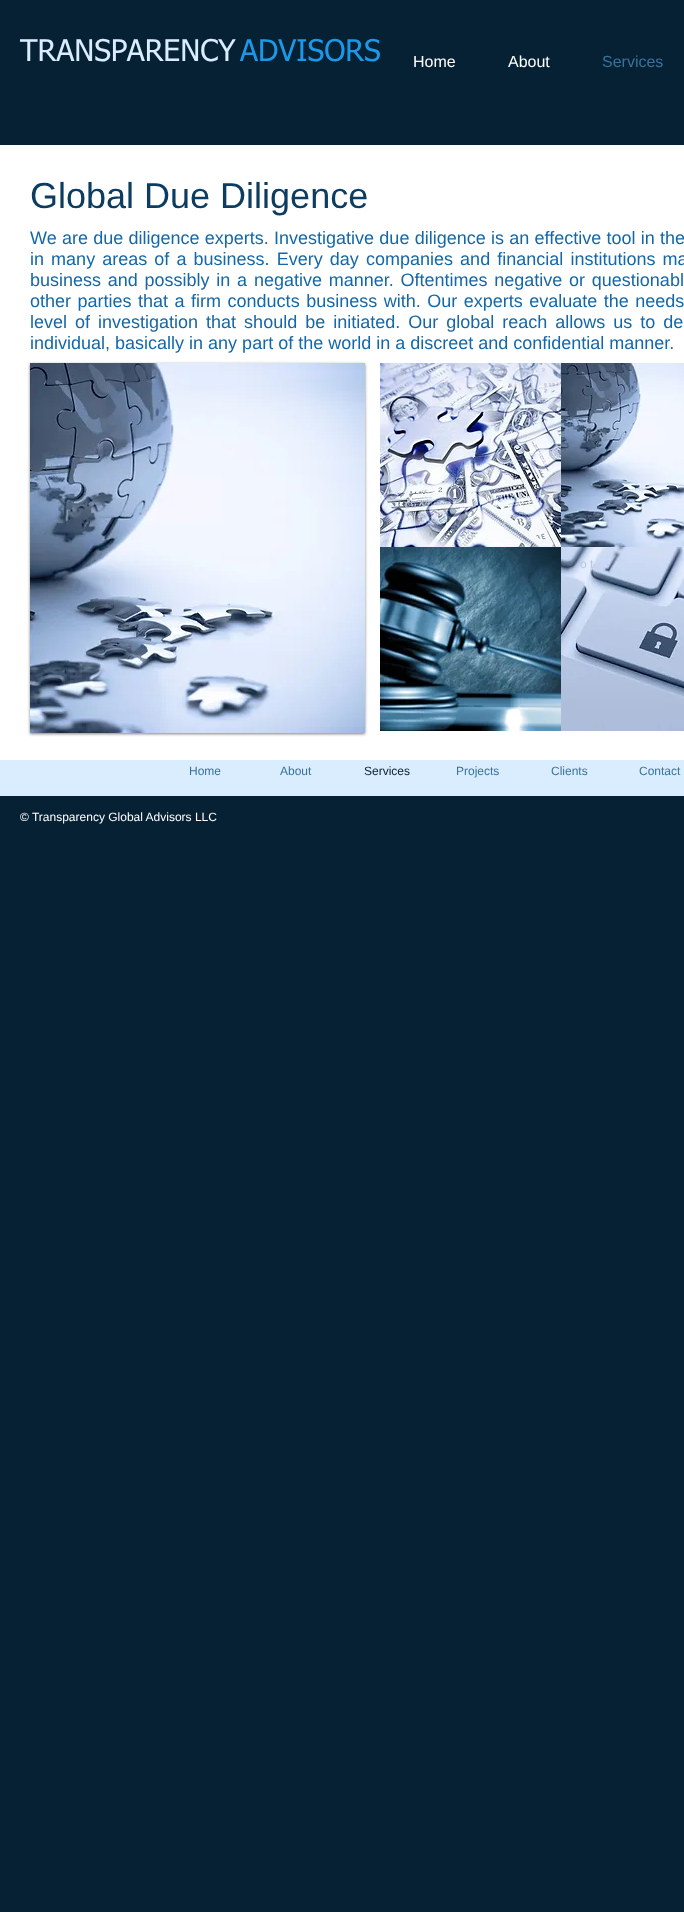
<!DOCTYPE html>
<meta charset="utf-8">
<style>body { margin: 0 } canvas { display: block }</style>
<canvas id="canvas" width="684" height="1912"></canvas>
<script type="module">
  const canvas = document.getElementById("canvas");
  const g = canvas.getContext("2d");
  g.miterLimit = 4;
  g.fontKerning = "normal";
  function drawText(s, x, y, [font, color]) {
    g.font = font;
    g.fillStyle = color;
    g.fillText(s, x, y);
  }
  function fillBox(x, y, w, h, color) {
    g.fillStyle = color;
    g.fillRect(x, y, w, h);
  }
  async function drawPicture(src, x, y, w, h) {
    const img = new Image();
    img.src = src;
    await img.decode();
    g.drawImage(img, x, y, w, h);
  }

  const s1 = ["30px tahoma", "#DAEDFF"];
  const s2 = ["30px tahoma", "#1B99E8"];
  const s3 = ["16px Liberation Sans", "#FFFFFF"];
  const s4 = ["16px Liberation Sans", "#39729B"];
  const s5 = ["36px Liberation Sans", "#0C3C60"];
  const s6 = ["18px Liberation Sans", "#1468A8"];
  const s7 = ["12px Liberation Sans", "#B9C7E1"];
  const s8 = ["12px Liberation Sans", "#39729B"];
  const s9 = ["12px Liberation Sans", "#062134"];
  const s10 = ["12px Liberation Sans", "#FFFFFF"];

  fillBox(0, 0, 684, 1912, "#062134");
  drawText("TRANSPARENCY", 20, 61, s1);
  drawText("ADVISORS", 240, 61, s2);
  drawText("Home", 413, 67, s3);
  drawText("About", 508, 67, s3);
  drawText("Services", 602, 67, s4);
  fillBox(0, 145, 684, 615, "#FFFFFF");
  drawText("Global Due Diligence", 30, 208, s5);
  g.wordSpacing = "0.25px";
  drawText("We are due diligence experts. Investigative due diligence is an effective tool in the", 30, 244, s6);
  g.wordSpacing = "2.1px";
  drawText("in many areas of a business. Every day companies and financial institutions ma", 30, 265, s6);
  g.wordSpacing = "1.75px";
  drawText("business and possibly in a negative manner. Oftentimes negative or questionabl", 30, 286, s6);
  g.wordSpacing = "1.5px";
  drawText("other parties that a firm conducts business with. Our experts evaluate the needs", 30, 307, s6);
  g.wordSpacing = "3px";
  drawText("level of investigation that should be initiated. Our global reach allows us to de", 30, 328, s6);
  g.wordSpacing = "0px";
  drawText("individual, basically in any part of the world in a discreet and confidential manner.", 30, 349, s6);
  g.fillStyle = "rgba(0, 0, 0, 0.5)";
  g.filter = "blur(1.5px)";
  g.beginPath();
  g.rect(30, 364, 335, 370);
  g.fill();
  g.filter = "none";
  await drawPicture("pic1.png", 30, 363, 335, 370);
  await drawPicture("pic2.png", 380, 363, 181, 184);
  await drawPicture("pic3.png", 561, 363, 123, 184);
  await drawPicture("pic4.png", 380, 547, 181, 184);
  await drawPicture("pic5.png", 561, 547, 123, 184);
  drawText("o t", 580, 568, s7);
  fillBox(0, 760, 684, 36, "#DAEDFF");
  drawText("Home", 189, 775, s8);
  drawText("About", 280, 775, s8);
  drawText("Services", 364, 775, s9);
  drawText("Projects", 456, 775, s8);
  drawText("Clients", 551, 775, s8);
  drawText("Contact", 639, 775, s8);
  drawText("© Transparency Global Advisors LLC", 20, 821, s10);
</script>
